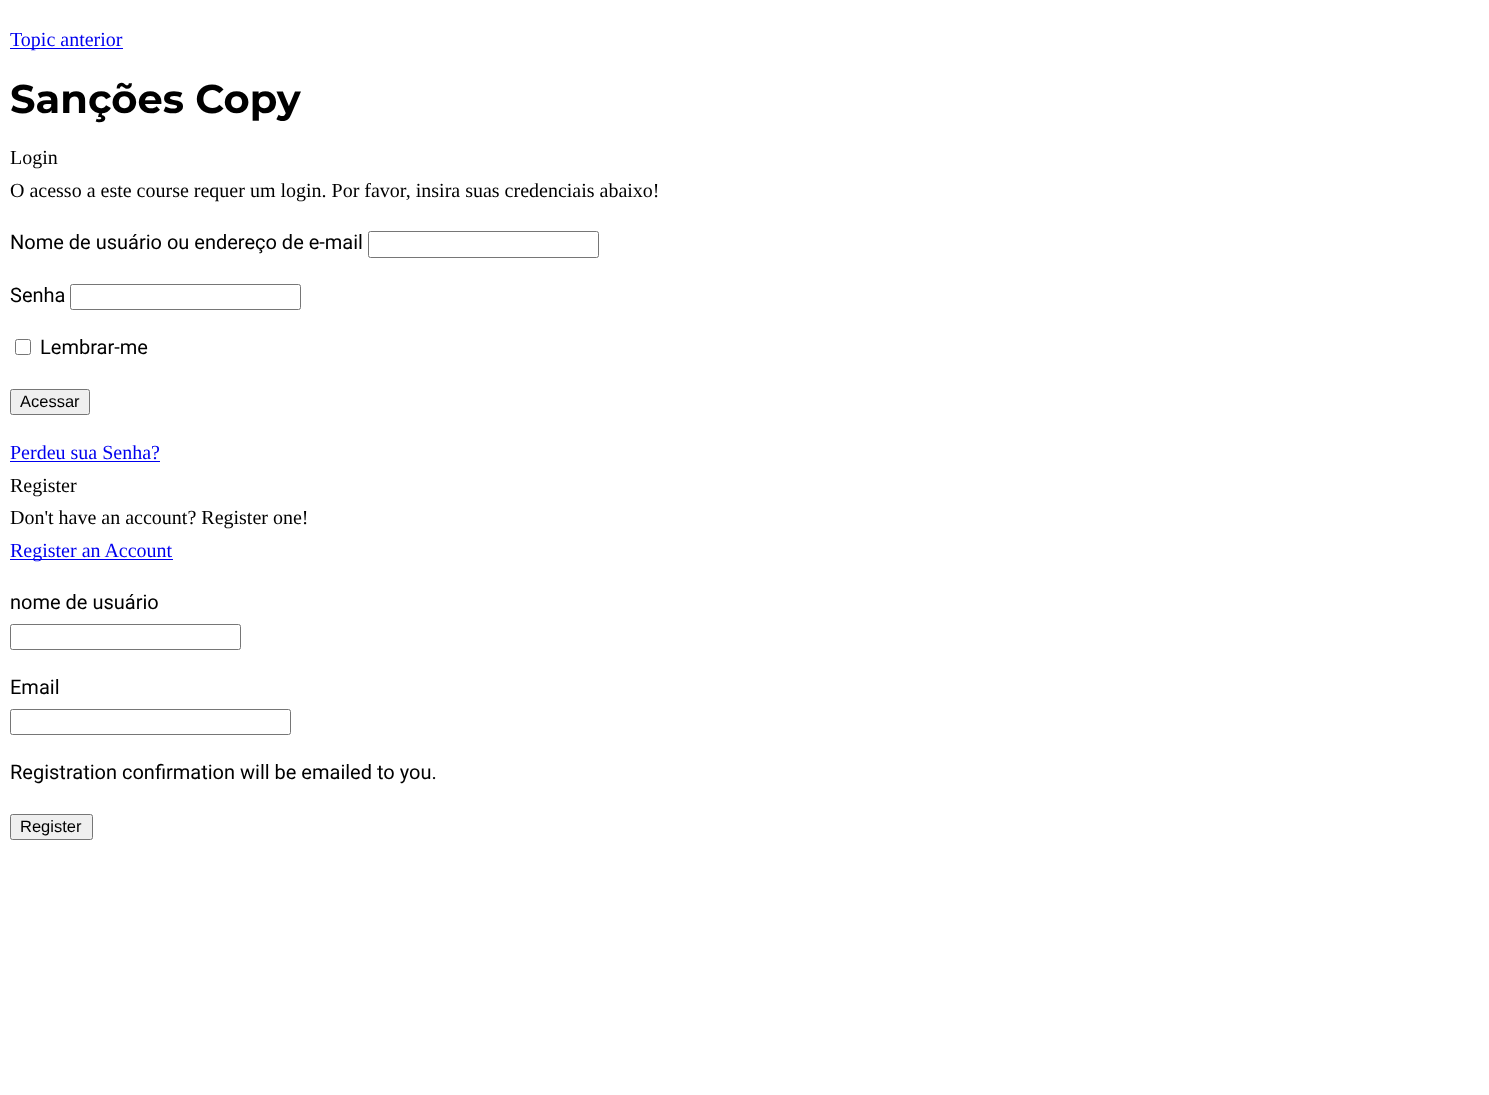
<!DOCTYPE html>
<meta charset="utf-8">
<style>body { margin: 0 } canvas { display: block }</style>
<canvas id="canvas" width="1489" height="1095"></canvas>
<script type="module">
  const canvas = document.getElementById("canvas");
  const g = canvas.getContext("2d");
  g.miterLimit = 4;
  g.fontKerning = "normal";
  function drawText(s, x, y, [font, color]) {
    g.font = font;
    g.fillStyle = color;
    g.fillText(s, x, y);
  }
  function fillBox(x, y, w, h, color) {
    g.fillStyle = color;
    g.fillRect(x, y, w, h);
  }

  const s1 = ["20px Liberation Serif", "#0000EE"];
  const s2 = ["bold 40px Montserrat", "#000000"];
  const s3 = ["20px Liberation Serif", "#000000"];
  const s4 = ["20px Roboto", "#000000"];
  const s5 = ["16.5px Liberation Sans", "#000000"];

  fillBox(0, 0, 1489, 1095, "#FFFFFF");
  fillBox(10, 48, 113, 1, "#0000EE");
  drawText("Topic anterior", 10, 46, s1);
  drawText("Sanções Copy", 10, 113, s2);
  drawText("Login", 10, 164, s3);
  drawText("O acesso a este course requer um login. Por favor, insira suas credenciais abaixo!", 10, 197, s3);
  drawText("Nome de usuário ou endereço de e-mail", 10, 249, s4);
  g.beginPath();
  g.roundRect(368.5, 231.5, 230, 26, 2);
  g.strokeStyle = "#767676";
  g.stroke();
  drawText("Senha", 10, 302, s4);
  g.beginPath();
  g.roundRect(70.5, 284.5, 230, 25, 2);
  g.stroke();
  g.beginPath();
  g.roundRect(15.5, 339.5, 15, 15, 2);
  g.stroke();
  drawText("Lembrar-me", 40, 354, s4);
  g.fillStyle = "#EFEFEF";
  g.beginPath();
  g.roundRect(10.5, 389.5, 79, 25, 2);
  g.fill();
  g.stroke();
  drawText("Acessar", 20, 407, s5);
  drawText("Perdeu sua Senha?", 10, 459, s1);
  fillBox(10, 461, 150, 1, "#0000EE");
  drawText("Register", 10, 492, s3);
  drawText("Don't have an account? Register one!", 10, 524, s3);
  fillBox(10, 559, 163, 1, "#0000EE");
  drawText("Register an Account", 10, 557, s1);
  drawText("nome de usuário", 10, 609, s4);
  g.beginPath();
  g.roundRect(10.5, 624.5, 230, 25, 2);
  g.stroke();
  drawText("Email", 10, 694, s4);
  g.beginPath();
  g.roundRect(10.5, 709.5, 280, 25, 2);
  g.stroke();
  drawText("Registration confirmation will be emailed to you.", 10, 779, s4);
  g.fillStyle = "#EFEFEF";
  g.beginPath();
  g.roundRect(10.5, 814.5, 82, 25, 2);
  g.fill();
  g.stroke();
  drawText("Register", 20, 832, s5);
</script>
